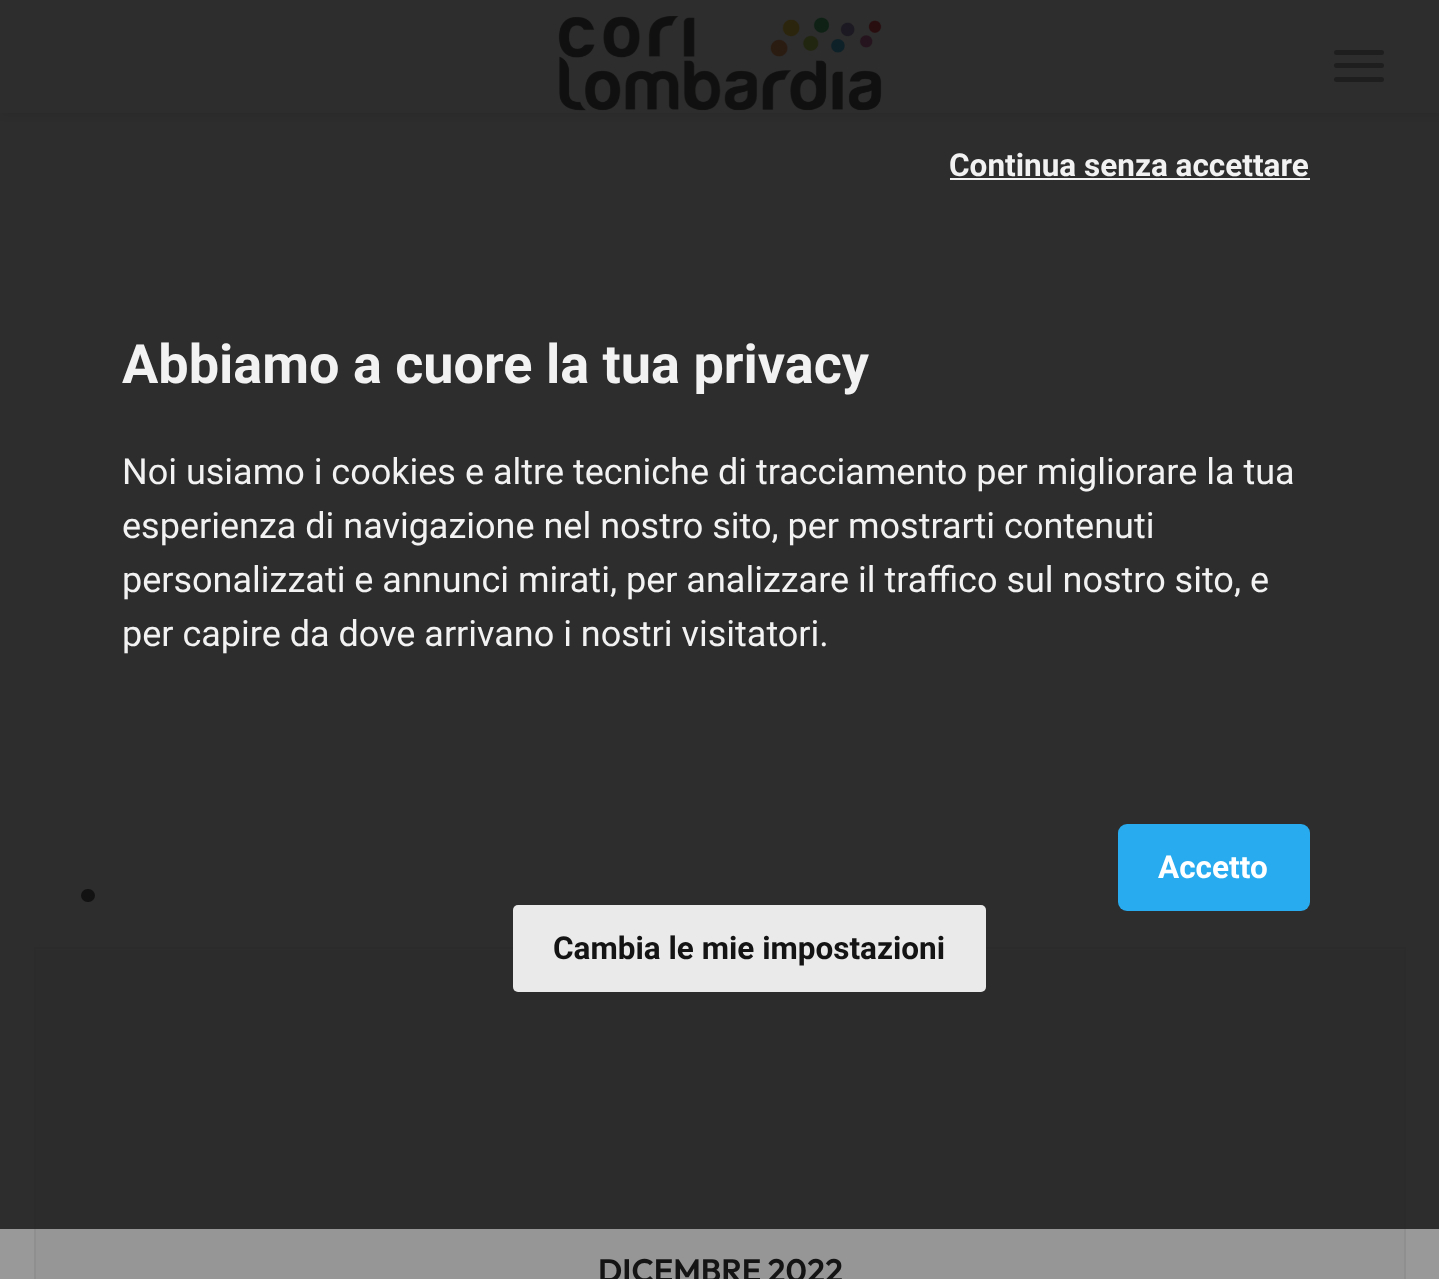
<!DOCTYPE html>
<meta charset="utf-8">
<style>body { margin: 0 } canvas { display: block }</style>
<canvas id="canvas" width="1439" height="1279"></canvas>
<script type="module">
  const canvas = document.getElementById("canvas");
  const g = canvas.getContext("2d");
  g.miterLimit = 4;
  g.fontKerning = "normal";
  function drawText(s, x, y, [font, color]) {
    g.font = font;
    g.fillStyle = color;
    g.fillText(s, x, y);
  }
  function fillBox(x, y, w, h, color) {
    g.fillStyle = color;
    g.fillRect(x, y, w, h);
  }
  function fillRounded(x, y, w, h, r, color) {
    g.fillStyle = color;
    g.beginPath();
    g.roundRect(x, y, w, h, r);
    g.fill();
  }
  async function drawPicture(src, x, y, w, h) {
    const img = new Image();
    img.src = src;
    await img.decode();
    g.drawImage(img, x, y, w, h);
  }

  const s1 = ["bold 54px Roboto", "#F2F2F2"];
  const s2 = ["bold 31.5px Roboto", "#F2F2F2"];
  const s3 = ["bold 31.5px Roboto", "#FFFFFF"];
  const s4 = ["bold 31.5px Roboto", "#141414"];
  const s5 = ["36px Roboto", "#F2F2F2"];
  const s6 = ["600 32.5px Outfit", "#141414"];

  fillBox(0, 0, 1439, 1279, "#999999");
  g.fillStyle = "rgba(0, 0, 0, 0.1)";
  g.filter = "blur(3.5px)";
  g.beginPath();
  g.rect(2, 2, 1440, 113);
  g.fill();
  g.filter = "none";
  fillBox(0, 0, 1439, 113, "#999999");
  await drawPicture("pic1.png", 558, 16, 324, 95);
  fillRounded(1334, 50, 50, 5, 2.5, "#525252");
  fillRounded(1334, 63, 50, 5, 2.5, "#525252");
  fillRounded(1334, 77, 50, 5, 2.5, "#525252");
  fillRounded(81, 889, 14, 13, 6.5, "#141414");
  g.strokeStyle = "#8F8F8F";
  g.lineWidth = 2;
  g.strokeRect(35, 948, 1370, 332);
  fillBox(36, 950, 1368, 329, "#969696");
  fillBox(0, 0, 1439, 1229, "rgba(17, 17, 17, 0.8)");
  drawText("Abbiamo a cuore la tua privacy", 122, 383, s1);
  drawText("Continua senza accettare", 949, 176, s2);
  fillBox(950, 178, 360, 2, "#F2F2F2");
  fillRounded(1118, 824, 192, 87, 9, "#29ABEF");
  drawText("Accetto", 1158, 878, s3);
  fillRounded(513, 905, 473, 87, 5, "#EAEAEA");
  drawText("Cambia le mie impostazioni", 553, 959, s4);
  drawText("Noi usiamo i cookies e altre tecniche di tracciamento per migliorare la tua", 122, 484, s5);
  drawText("esperienza di navigazione nel nostro sito, per mostrarti contenuti", 122, 538, s5);
  drawText("personalizzati e annunci mirati, per analizzare il traffico sul nostro sito, e", 122, 592, s5);
  drawText("per capire da dove arrivano i nostri visitatori.", 122, 646, s5);
  drawText("DICEMBRE 2022", 598, 1282, s6);
</script>
